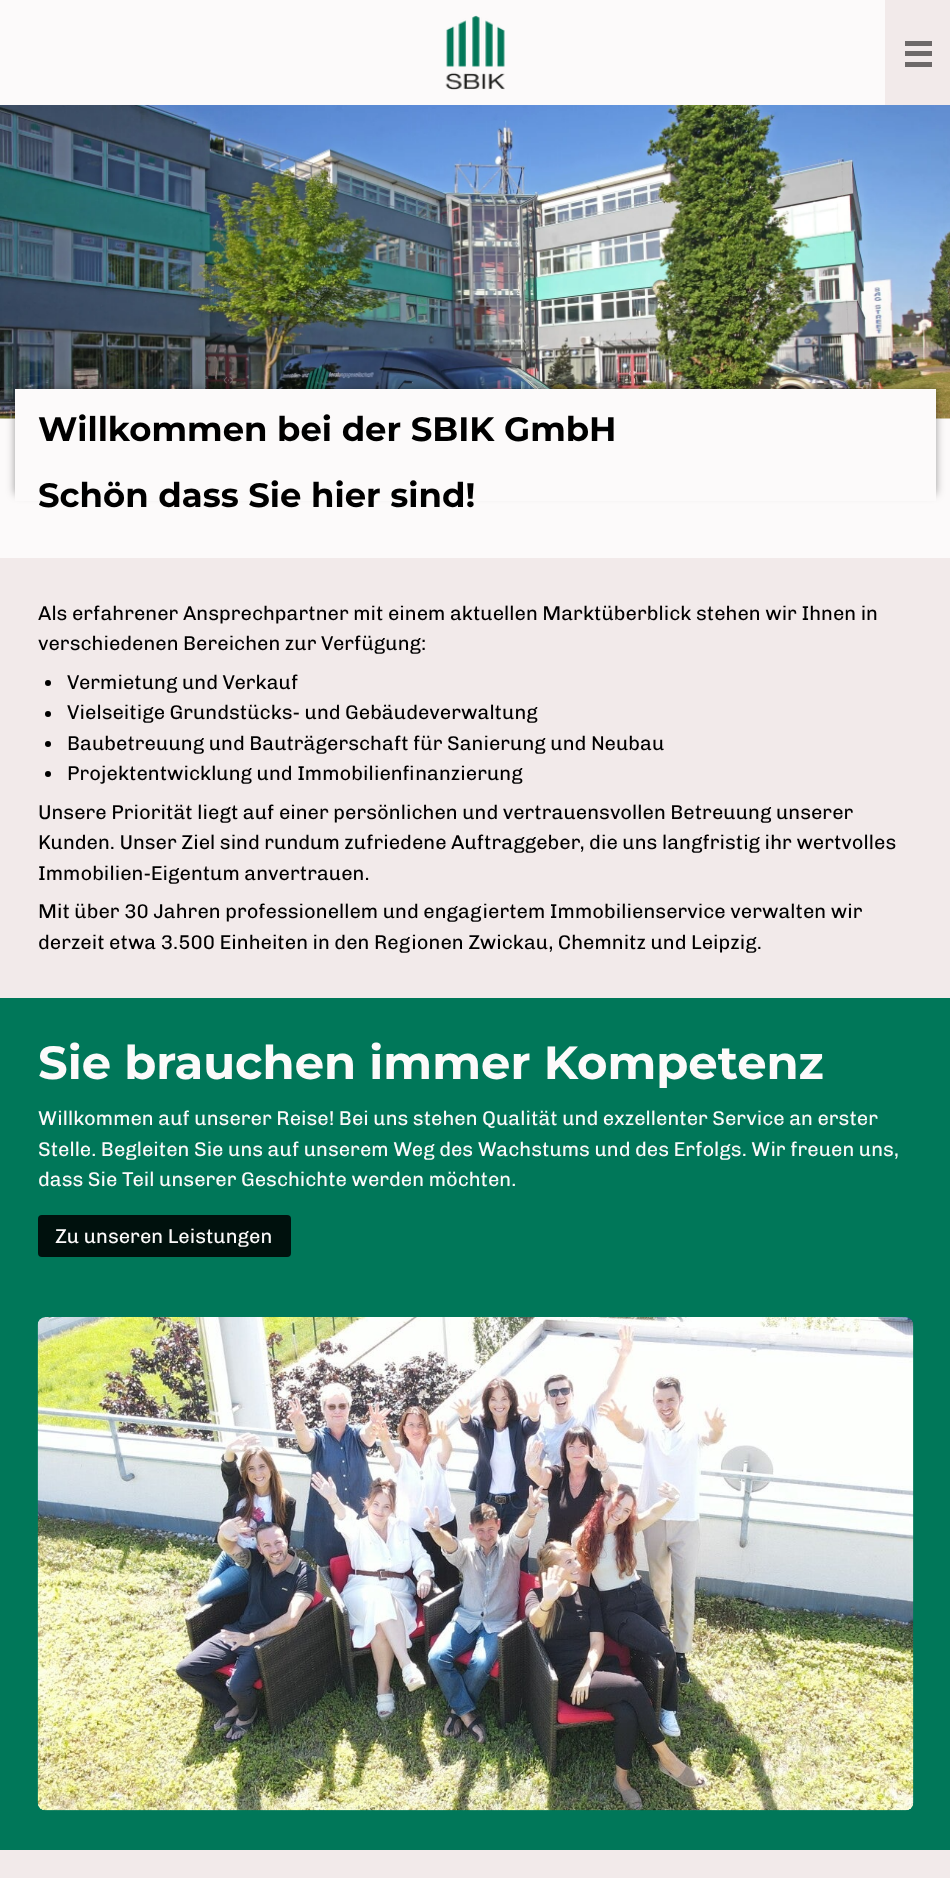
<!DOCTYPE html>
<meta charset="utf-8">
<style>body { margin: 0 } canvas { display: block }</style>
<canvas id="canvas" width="950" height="1878"></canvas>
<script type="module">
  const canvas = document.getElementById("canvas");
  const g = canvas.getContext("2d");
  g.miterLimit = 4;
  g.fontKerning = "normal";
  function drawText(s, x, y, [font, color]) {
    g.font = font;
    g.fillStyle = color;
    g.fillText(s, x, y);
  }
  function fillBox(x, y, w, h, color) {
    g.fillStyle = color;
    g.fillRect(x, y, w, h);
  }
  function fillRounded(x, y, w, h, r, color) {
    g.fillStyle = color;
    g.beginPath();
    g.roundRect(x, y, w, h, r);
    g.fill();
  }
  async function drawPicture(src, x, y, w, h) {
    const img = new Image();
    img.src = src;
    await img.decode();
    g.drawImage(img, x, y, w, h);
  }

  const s1 = ["bold 33.9px Montserrat", "#000000"];
  const s2 = ["19.95px Chivo", "#000000"];
  const s3 = ["bold 46.5px Montserrat", "#FCFAFA"];
  const s4 = ["19.95px Chivo", "#FCFAFA"];

  fillBox(0, 0, 950, 1878, "#FCFAFA");
  await drawPicture("pic1.png", 445, 15, 60, 75);
  fillBox(885, 0, 65, 105, "#F2EAEA");
  fillBox(905, 51, 27, 5, "#6D6969");
  fillBox(905, 41, 27, 5, "#6D6969");
  fillBox(905, 62, 27, 5, "#6D6969");
  await drawPicture("pic2.png", 0, 105, 950, 314);
  g.fillStyle = "rgba(0, 0, 0, 0.4)";
  g.filter = "blur(4px)";
  g.beginPath();
  g.rect(15, 389, 921, 105);
  g.fill();
  g.filter = "none";
  fillBox(15, 389, 921, 112, "#FCFAFA");
  drawText("Willkommen bei der SBIK GmbH", 38, 441, s1);
  drawText("Schön dass Sie hier sind!", 38, 507, s1);
  fillBox(0, 558, 950, 440, "#F2EAEA");
  drawText("Als erfahrener Ansprechpartner mit einem aktuellen Marktüberblick stehen wir Ihnen in", 38, 620, s2);
  drawText("verschiedenen Bereichen zur Verfügung:", 38, 650, s2);
  g.beginPath();
  g.arc(48, 683, 3, 0, Math.PI * 2);
  g.fill();
  drawText("Vermietung und Verkauf", 67, 689, s2);
  g.beginPath();
  g.arc(48, 714, 3, 0, Math.PI * 2);
  g.fill();
  drawText("Vielseitige Grundstücks- und Gebäudeverwaltung", 67, 719, s2);
  g.beginPath();
  g.arc(48, 744, 3, 0, Math.PI * 2);
  g.fill();
  drawText("Baubetreuung und Bauträgerschaft für Sanierung und Neubau", 67, 750, s2);
  g.beginPath();
  g.arc(48, 774, 3, 0, Math.PI * 2);
  g.fill();
  drawText("Projektentwicklung und Immobilienfinanzierung", 67, 780, s2);
  drawText("Unsere Priorität liegt auf einer persönlichen und vertrauensvollen Betreuung unserer", 38, 819, s2);
  drawText("Kunden. Unser Ziel sind rundum zufriedene Auftraggeber, die uns langfristig ihr wertvolles", 38, 849, s2);
  drawText("Immobilien-Eigentum anvertrauen.", 38, 880, s2);
  drawText("Mit über 30 Jahren professionellem und engagiertem Immobilienservice verwalten wir", 38, 918, s2);
  drawText("derzeit etwa 3.500 Einheiten in den Regionen Zwickau, Chemnitz und Leipzig.", 38, 949, s2);
  fillBox(0, 998, 950, 852, "#007759");
  drawText("Sie brauchen immer Kompetenz", 38, 1079, s3);
  drawText("Willkommen auf unserer Reise! Bei uns stehen Qualität und exzellenter Service an erster", 38, 1125, s4);
  drawText("Stelle. Begleiten Sie uns auf unserem Weg des Wachstums und des Erfolgs. Wir freuen uns,", 38, 1156, s4);
  drawText("dass Sie Teil unserer Geschichte werden möchten.", 38, 1186, s4);
  fillRounded(38, 1215, 253, 42, 4, "#00110D");
  drawText("Zu unseren Leistungen", 55, 1243, s4);
  await drawPicture("pic3.png", 37, 1317, 877, 494);
  fillBox(0, 1850, 950, 28, "#F2EAEA");
</script>
